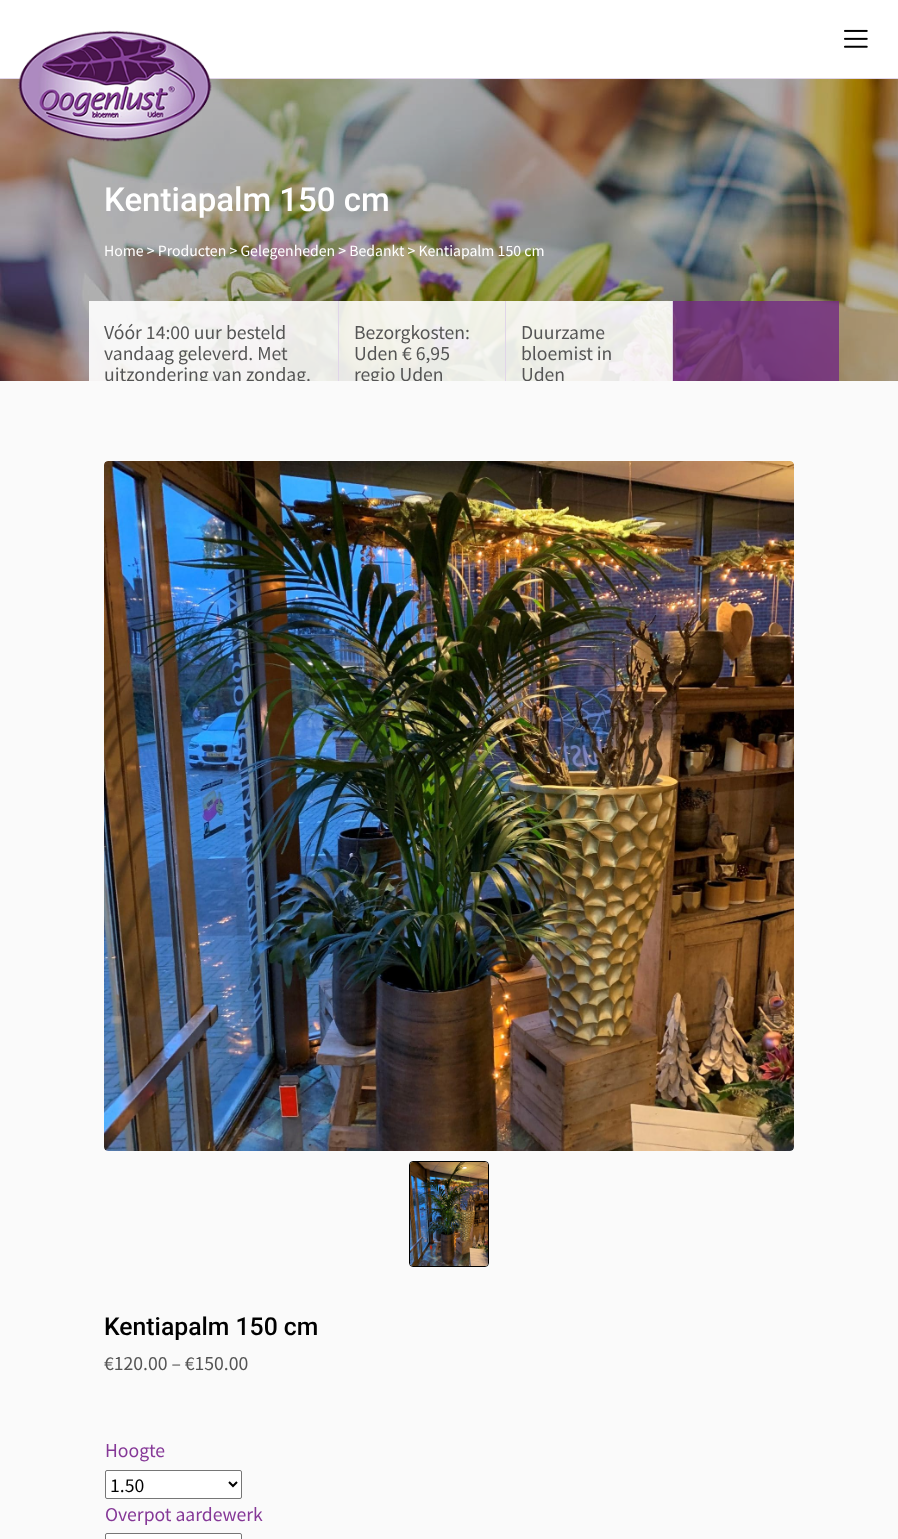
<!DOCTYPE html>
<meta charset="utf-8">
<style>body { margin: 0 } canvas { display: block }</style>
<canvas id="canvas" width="898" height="1539"></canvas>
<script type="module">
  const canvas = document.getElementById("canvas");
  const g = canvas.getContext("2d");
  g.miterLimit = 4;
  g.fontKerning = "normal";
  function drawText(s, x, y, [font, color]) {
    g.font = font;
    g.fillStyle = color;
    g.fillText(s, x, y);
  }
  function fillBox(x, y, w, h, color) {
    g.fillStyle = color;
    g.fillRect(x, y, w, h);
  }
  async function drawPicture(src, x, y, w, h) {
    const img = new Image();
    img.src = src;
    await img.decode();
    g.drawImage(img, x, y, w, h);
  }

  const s1 = ["500 33px Roboto", "#FFFFFF"];
  const s2 = ["14.1px Noto Sans TC", "#FFFFFF"];
  const s3 = ["17.6px Noto Sans TC", "#555555"];
  const s4 = ["500 24.75px Roboto", "#000000"];
  const s5 = ["17.6px Noto Sans TC", "#853897"];
  const s6 = ["17.6px Noto Sans TC", "#000000"];

  fillBox(0, 0, 898, 1539, "#FFFFFF");
  fillBox(0, 78, 898, 1, "#E1D5E9");
  await drawPicture("pic3.png", 0, 79, 898, 302);
  await drawPicture("pic1.png", 17, 30, 195, 112);
  await drawPicture("pic2.png", 844, 29, 24, 19);
  drawText("Kentiapalm 150 cm", 104, 211, s1);
  drawText("Home > Producten > Gelegenheden > Bedankt > Kentiapalm 150 cm", 104, 256, s2);
  fillBox(89, 301, 249, 80, "rgba(255, 255, 255, 0.9)");
  fillBox(338, 301, 1, 80, "#E1D5E9");
  drawText("Vóór 14:00 uur besteld", 104, 339, s3);
  drawText("vandaag geleverd. Met", 104, 360, s3);
  g.save();
  g.beginPath();
  g.rect(0, 79, 898, 302);
  g.clip();
  drawText("uitzondering van zondag.", 104, 381, s3);
  g.restore();
  fillBox(339, 301, 166, 80, "rgba(255, 255, 255, 0.9)");
  fillBox(505, 301, 1, 80, "#E1D5E9");
  drawText("Bezorgkosten:", 354, 339, s3);
  drawText("Uden € 6,95", 354, 360, s3);
  g.save();
  g.beginPath();
  g.rect(0, 79, 898, 302);
  g.clip();
  drawText("regio Uden", 354, 381, s3);
  g.restore();
  fillBox(506, 301, 166, 80, "rgba(255, 255, 255, 0.9)");
  fillBox(672, 301, 1, 80, "#E1D5E9");
  drawText("Duurzame", 521, 339, s3);
  drawText("bloemist in", 521, 360, s3);
  g.save();
  g.beginPath();
  g.rect(0, 79, 898, 302);
  g.clip();
  drawText("Uden", 521, 381, s3);
  g.restore();
  fillBox(673, 301, 166, 80, "rgba(114, 42, 131, 0.8)");
  fillBox(0, 381, 898, 1158, "#FAFAFA");
  await drawPicture("pic4.png", 104, 461, 690, 690);
  g.beginPath();
  g.roundRect(409.5, 1161.5, 79, 105, 3.5);
  g.strokeStyle = "#000000";
  g.stroke();
  await drawPicture("pic5.png", 410, 1162, 78, 104);
  drawText("Kentiapalm 150 cm", 104, 1335, s4);
  drawText("€120.00 – €150.00", 104, 1370, s3);
  drawText("Hoogte", 105, 1457, s5);
  g.fillStyle = "#FFFFFF";
  g.beginPath();
  g.roundRect(105.5, 1470.5, 136, 28, 1.5);
  g.fill();
  g.strokeStyle = "#767676";
  g.stroke();
  g.beginPath();
  g.moveTo(229, 1482);
  g.lineTo(233, 1486);
  g.lineTo(237, 1482);
  g.strokeStyle = "#000000";
  g.lineWidth = 2;
  g.stroke();
  drawText("1.50", 110, 1492, s6);
  drawText("Overpot aardewerk", 105, 1521, s5);
  g.fillStyle = "#FFFFFF";
  g.beginPath();
  g.roundRect(105.5, 1533.5, 136, 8, 1.5);
  g.fill();
  g.strokeStyle = "#767676";
  g.lineWidth = 1;
  g.stroke();
</script>
